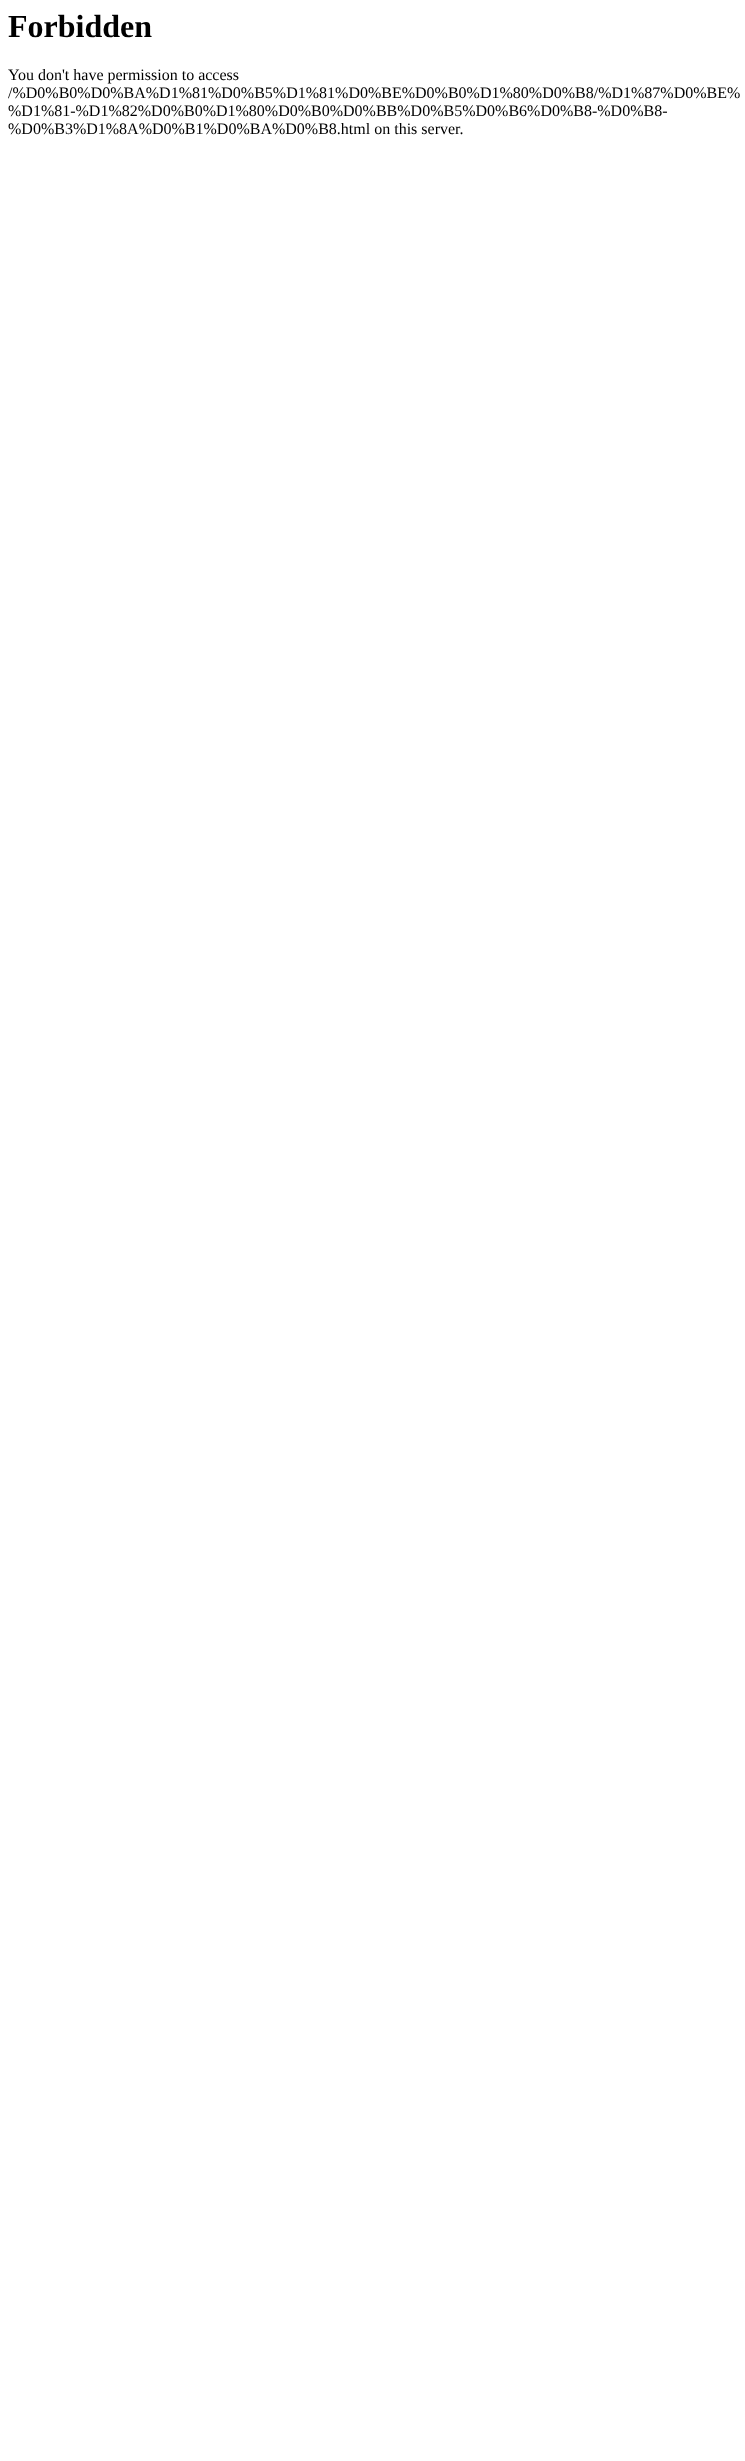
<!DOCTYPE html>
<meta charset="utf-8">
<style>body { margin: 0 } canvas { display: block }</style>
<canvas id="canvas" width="745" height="2461"></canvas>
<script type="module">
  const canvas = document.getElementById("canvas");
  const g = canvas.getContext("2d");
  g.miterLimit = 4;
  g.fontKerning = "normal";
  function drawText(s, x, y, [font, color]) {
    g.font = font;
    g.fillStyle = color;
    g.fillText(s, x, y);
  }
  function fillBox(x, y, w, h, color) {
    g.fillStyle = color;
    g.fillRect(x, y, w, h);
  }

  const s1 = ["bold 32px Liberation Serif", "#000000"];
  const s2 = ["16px Liberation Serif", "#000000"];

  fillBox(0, 0, 745, 2461, "#FFFFFF");
  drawText("Forbidden", 8, 37, s1);
  drawText("You don't have permission to access", 8, 80, s2);
  drawText("/%D0%B0%D0%BA%D1%81%D0%B5%D1%81%D0%BE%D0%B0%D1%80%D0%B8/%D1%87%D0%BE%", 8, 98, s2);
  drawText("%D1%81-%D1%82%D0%B0%D1%80%D0%B0%D0%BB%D0%B5%D0%B6%D0%B8-%D0%B8-", 8, 116, s2);
  drawText("%D0%B3%D1%8A%D0%B1%D0%BA%D0%B8.html on this server.", 8, 134, s2);
</script>
